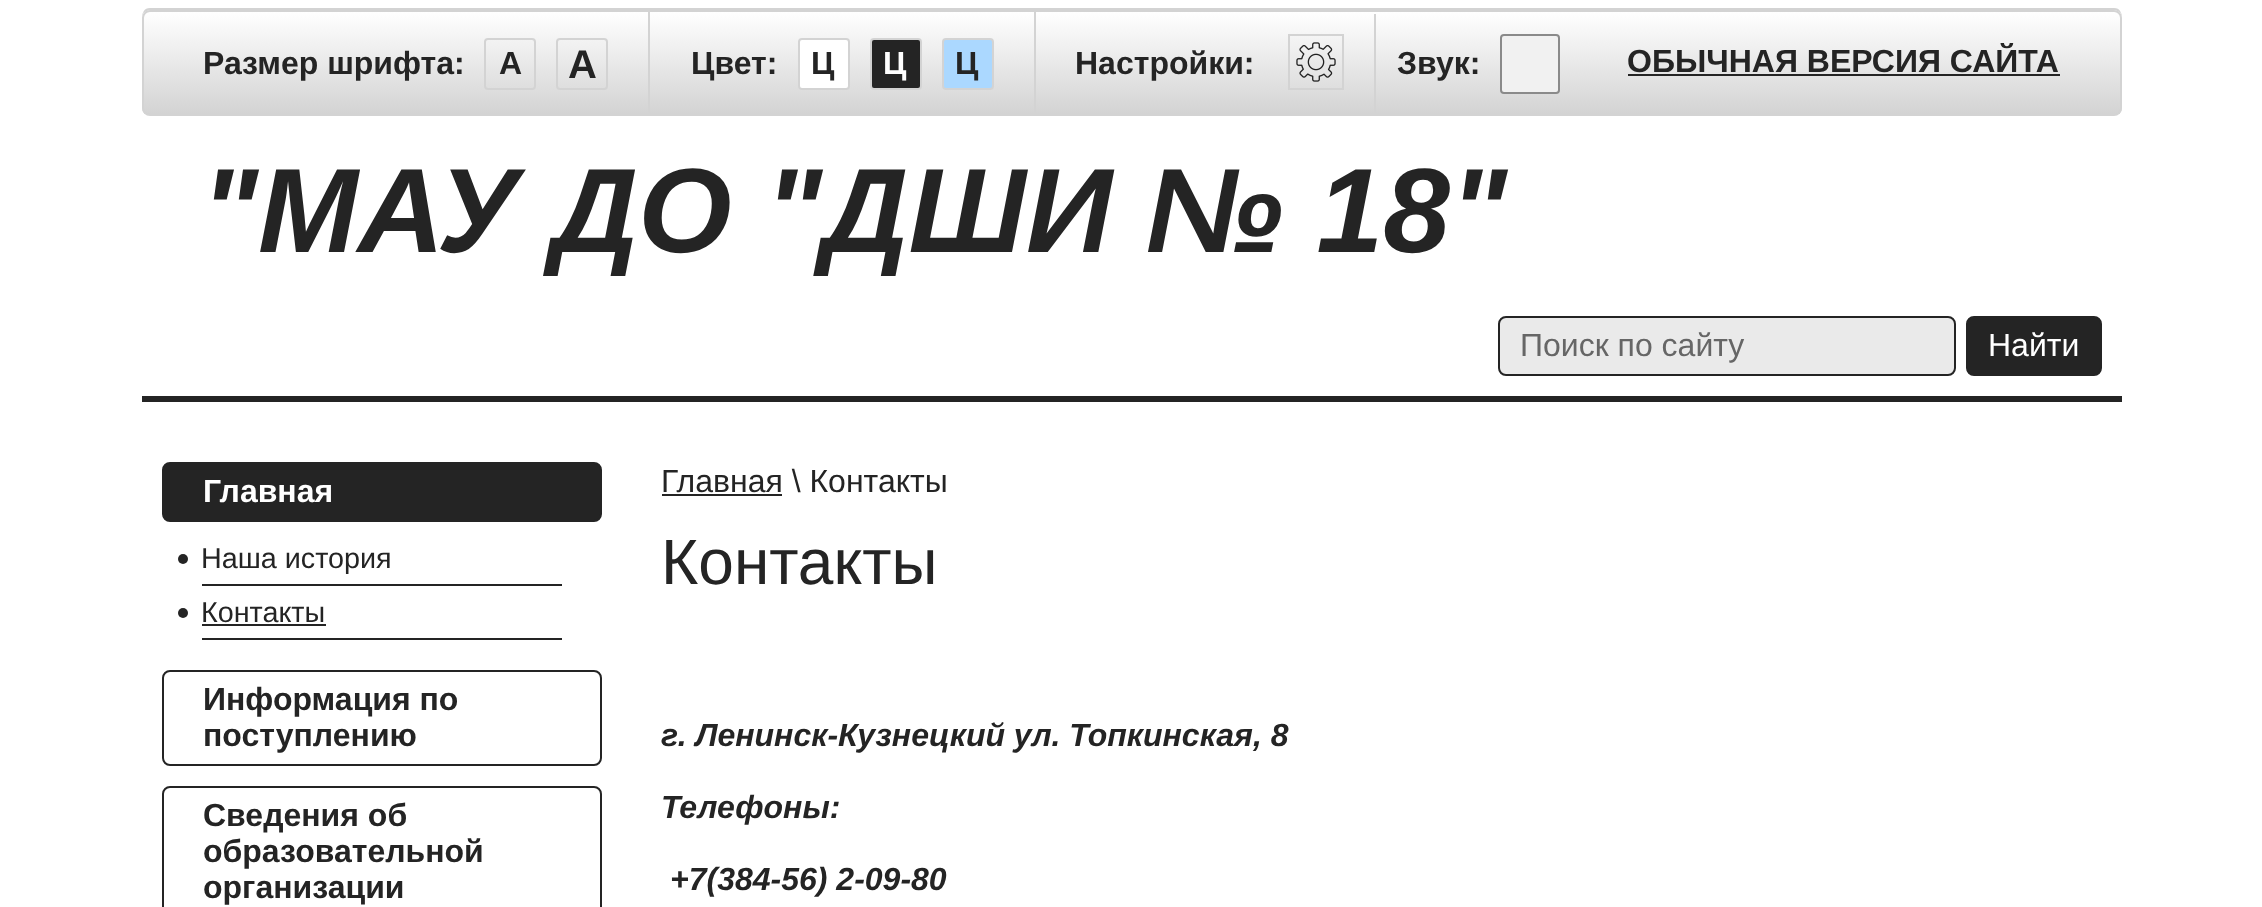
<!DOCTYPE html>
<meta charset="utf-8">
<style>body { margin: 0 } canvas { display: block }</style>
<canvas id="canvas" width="2262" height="907"></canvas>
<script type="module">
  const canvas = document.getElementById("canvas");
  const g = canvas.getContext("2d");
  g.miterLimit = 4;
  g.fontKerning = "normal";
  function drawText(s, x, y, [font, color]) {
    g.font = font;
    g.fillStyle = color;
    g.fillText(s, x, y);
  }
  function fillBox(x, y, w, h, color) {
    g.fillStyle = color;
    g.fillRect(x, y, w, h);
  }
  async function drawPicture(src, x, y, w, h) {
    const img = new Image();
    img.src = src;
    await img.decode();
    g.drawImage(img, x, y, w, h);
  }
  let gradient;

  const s1 = ["bold 32px Liberation Sans", "#242424"];
  const s2 = ["bold 40px Liberation Sans", "#242424"];
  const s3 = ["bold 32px Liberation Sans", "#FFFFFF"];
  const s4 = ["italic bold 120px Liberation Sans", "#242424"];
  const s5 = ["32px Liberation Sans", "#666666"];
  const s6 = ["32px Liberation Sans", "#FFFFFF"];
  const s7 = ["28.75px Liberation Sans", "#242424"];
  const s8 = ["32px Liberation Sans", "#242424"];
  const s9 = ["64px Liberation Sans", "#242424"];
  const s10 = ["italic bold 32px Liberation Sans", "#242424"];

  fillBox(0, 0, 2262, 907, "#FFFFFF");
  fillBox(142, 396, 1980, 6, "#242424");
  g.fillStyle = "#D3D3D3";
  g.beginPath();
  g.moveTo(150, 8);
  g.bezierCurveTo(144, 8, 142, 13, 142, 18);
  g.bezierCurveTo(142, 14, 146, 10, 150, 10);
  g.lineTo(2114, 10);
  g.bezierCurveTo(2118, 10, 2122, 14, 2122, 18);
  g.bezierCurveTo(2122, 13, 2120, 8, 2114, 8);
  g.closePath();
  g.fill();
  g.save();
  g.beginPath();
  g.roundRect(142, 10, 1980, 106, 8);
  g.clip();
  gradient = g.createLinearGradient(1132, 12, 1132, 114);
  gradient.addColorStop(0, "#FFFFFF");
  gradient.addColorStop(1, "#D3D3D3");
  g.fillStyle = gradient;
  g.fillRect(142, 12, 1980, 102);
  g.restore();
  g.beginPath();
  g.roundRect(143, 11, 1978, 104, 7);
  g.strokeStyle = "#D3D3D3";
  g.lineWidth = 2;
  g.stroke();
  fillBox(648, 12, 2, 102, "#D3D3D3");
  drawText("Размер шрифта:", 203, 74, s1);
  g.beginPath();
  g.roundRect(485, 39, 50, 50, 3);
  g.stroke();
  drawText("A", 499, 74, s1);
  g.beginPath();
  g.roundRect(557, 39, 50, 50, 3);
  g.stroke();
  drawText("A", 568, 78, s2);
  fillBox(1034, 12, 2, 102, "#D3D3D3");
  drawText("Цвет:", 691, 74, s1);
  g.fillStyle = "#FFFFFF";
  g.beginPath();
  g.roundRect(799, 39, 50, 50, 3);
  g.fill();
  g.stroke();
  drawText("Ц", 811, 74, s1);
  g.beginPath();
  g.roundRect(871, 39, 50, 50, 3);
  g.fill();
  g.stroke();
  drawText("Ц", 883, 74, s3);
  g.fillStyle = "#ABD8FF";
  g.beginPath();
  g.roundRect(943, 39, 50, 50, 3);
  g.fill();
  g.stroke();
  drawText("Ц", 955, 74, s1);
  drawText("Настройки:", 1075, 74, s1);
  g.strokeRect(1289, 35, 54, 54);
  await drawPicture("pic1.png", 1296, 42, 40, 40);
  fillBox(1374, 14, 2, 100, "#D3D3D3");
  drawText("Звук:", 1397, 74, s1);
  g.fillStyle = "#F1F1F1";
  g.beginPath();
  g.roundRect(1501, 35, 58, 58, 3);
  g.fill();
  g.strokeStyle = "#8A8A8A";
  g.stroke();
  drawText("ОБЫЧНАЯ ВЕРСИЯ САЙТА", 1627, 72, s1);
  fillBox(1628, 74, 432, 2, "#242424");
  drawText("\"МАУ ДО \"ДШИ № 18\"", 201, 252, s4);
  g.fillStyle = "#EAEAEA";
  g.beginPath();
  g.roundRect(1499, 317, 456, 58, 7);
  g.fill();
  g.strokeStyle = "#242424";
  g.stroke();
  drawText("Поиск по сайту", 1520, 356, s5);
  g.fillStyle = "#242424";
  g.beginPath();
  g.roundRect(1967, 317, 134, 58, 7);
  g.fill();
  g.stroke();
  drawText("Найти", 1988, 356, s6);
  g.fillStyle = "#242424";
  g.beginPath();
  g.roundRect(163, 463, 438, 58, 7);
  g.fill();
  g.stroke();
  drawText("Главная", 203, 502, s3);
  fillBox(202, 584, 360, 2, "#242424");
  g.beginPath();
  g.arc(183, 559, 5, 0, Math.PI * 2);
  g.fill();
  drawText("Наша история", 201, 568, s7);
  fillBox(202, 638, 360, 2, "#242424");
  g.beginPath();
  g.arc(183, 613, 5, 0, Math.PI * 2);
  g.fill();
  drawText("Контакты", 201, 622, s7);
  fillBox(202, 624, 124, 2, "#242424");
  g.beginPath();
  g.roundRect(163, 671, 438, 94, 7);
  g.stroke();
  drawText("Информация по", 203, 710, s1);
  drawText("поступлению", 203, 746, s1);
  g.beginPath();
  g.roundRect(163, 787, 438, 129, 7);
  g.stroke();
  drawText("Сведения об", 203, 826, s1);
  drawText("образовательной", 203, 862, s1);
  drawText("организации", 203, 898, s1);
  drawText("Главная \\ Контакты", 661, 492, s8);
  fillBox(662, 494, 120, 2, "#242424");
  drawText("Контакты", 661, 584, s9);
  drawText("г. Ленинск-Кузнецкий ул. Топкинская, 8", 661, 746, s10);
  drawText("Телефоны:", 661, 818, s10);
  drawText("+7(384-56) 2-09-80", 670, 890, s10);
</script>
